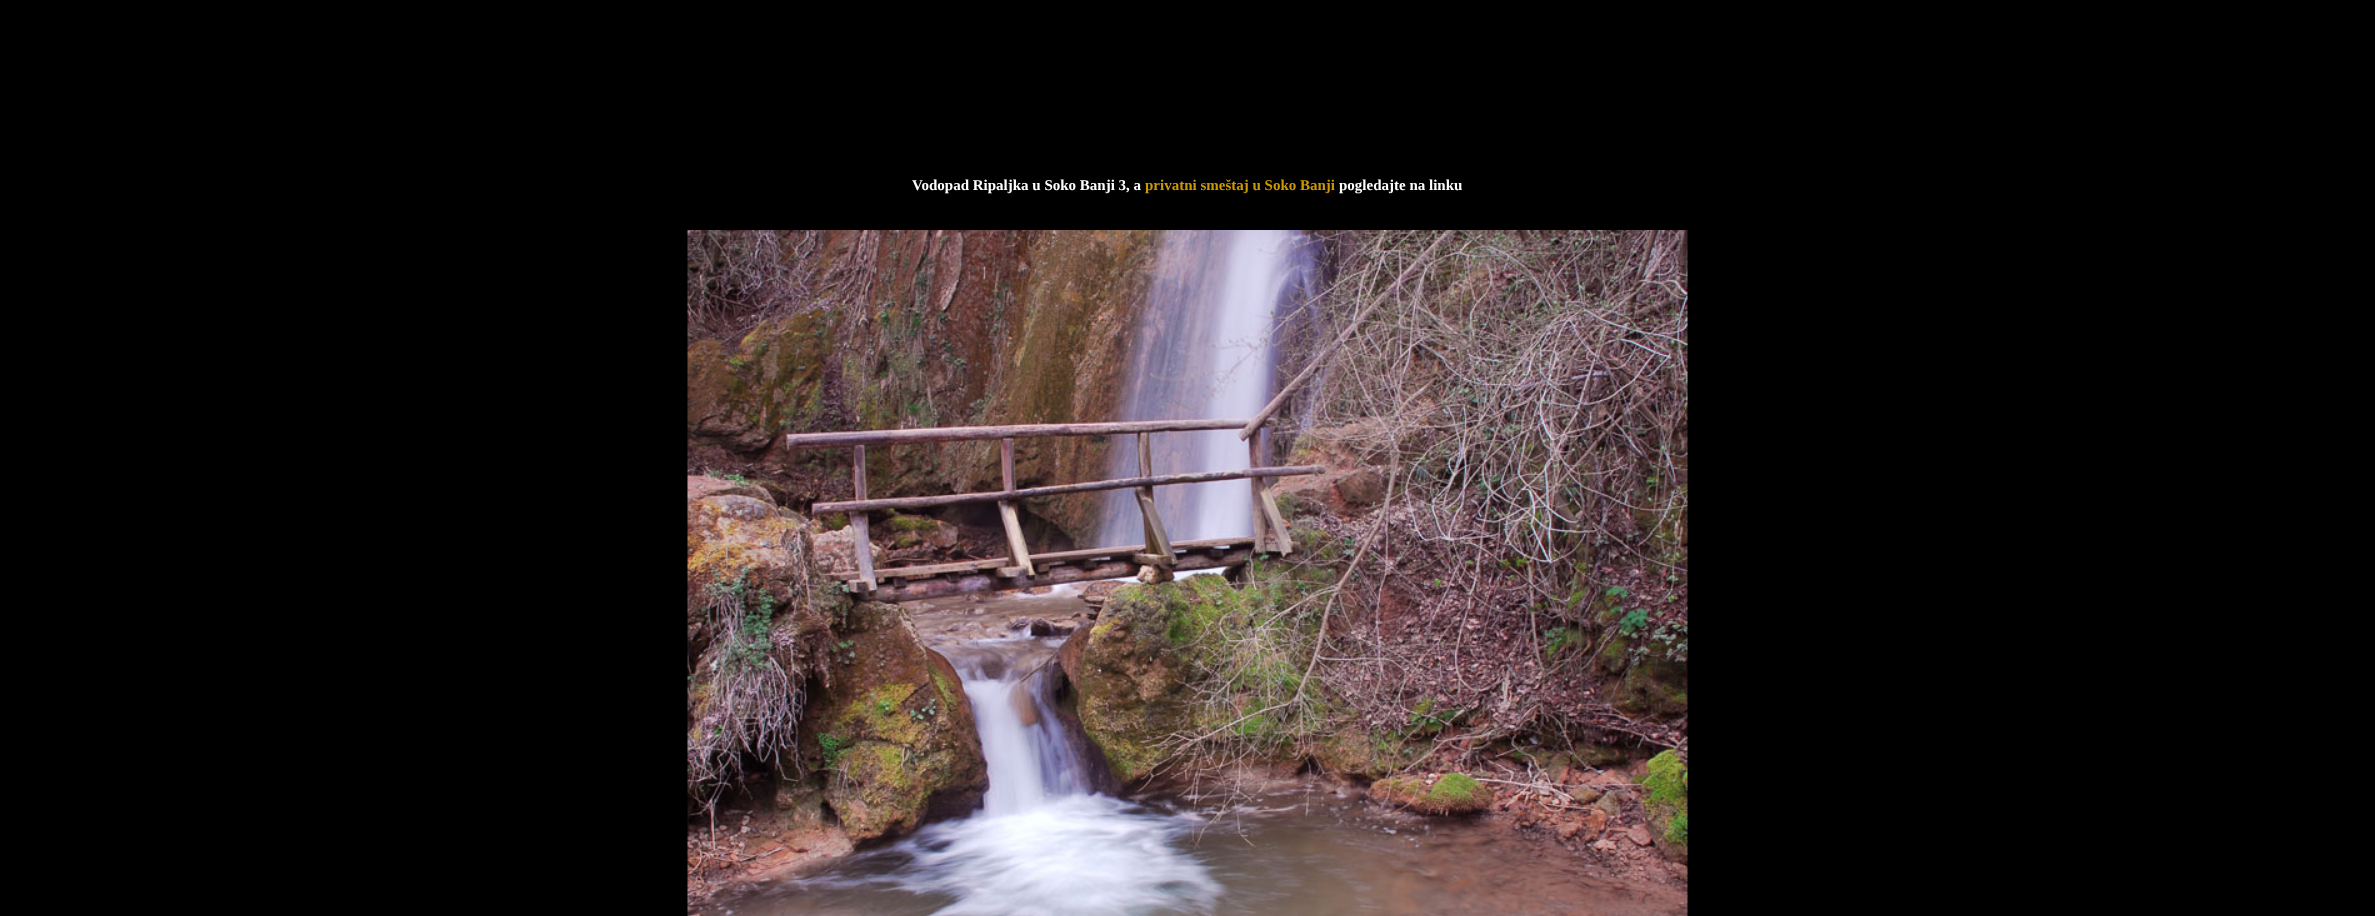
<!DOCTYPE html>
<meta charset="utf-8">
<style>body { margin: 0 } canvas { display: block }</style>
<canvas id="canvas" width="2375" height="916"></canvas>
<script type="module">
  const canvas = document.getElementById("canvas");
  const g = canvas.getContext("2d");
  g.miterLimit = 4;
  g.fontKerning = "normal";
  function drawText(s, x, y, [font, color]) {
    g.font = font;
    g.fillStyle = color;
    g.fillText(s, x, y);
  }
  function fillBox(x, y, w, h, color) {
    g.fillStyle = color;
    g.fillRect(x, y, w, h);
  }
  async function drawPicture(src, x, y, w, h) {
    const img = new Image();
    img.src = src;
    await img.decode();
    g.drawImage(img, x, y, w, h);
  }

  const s1 = ["bold 15px Liberation Serif", "#FFFFFF"];
  const s2 = ["bold 15px Liberation Serif", "#CC9900"];

  fillBox(0, 0, 2375, 916, "#000000");
  drawText("Vodopad Ripaljka u Soko Banji 3, a", 912, 190, s1);
  drawText("privatni smeštaj u Soko Banji", 1145, 190, s2);
  drawText("pogledajte na linku", 1339, 190, s1);
  await drawPicture("pic1.png", 687, 230, 1001, 686);
</script>
